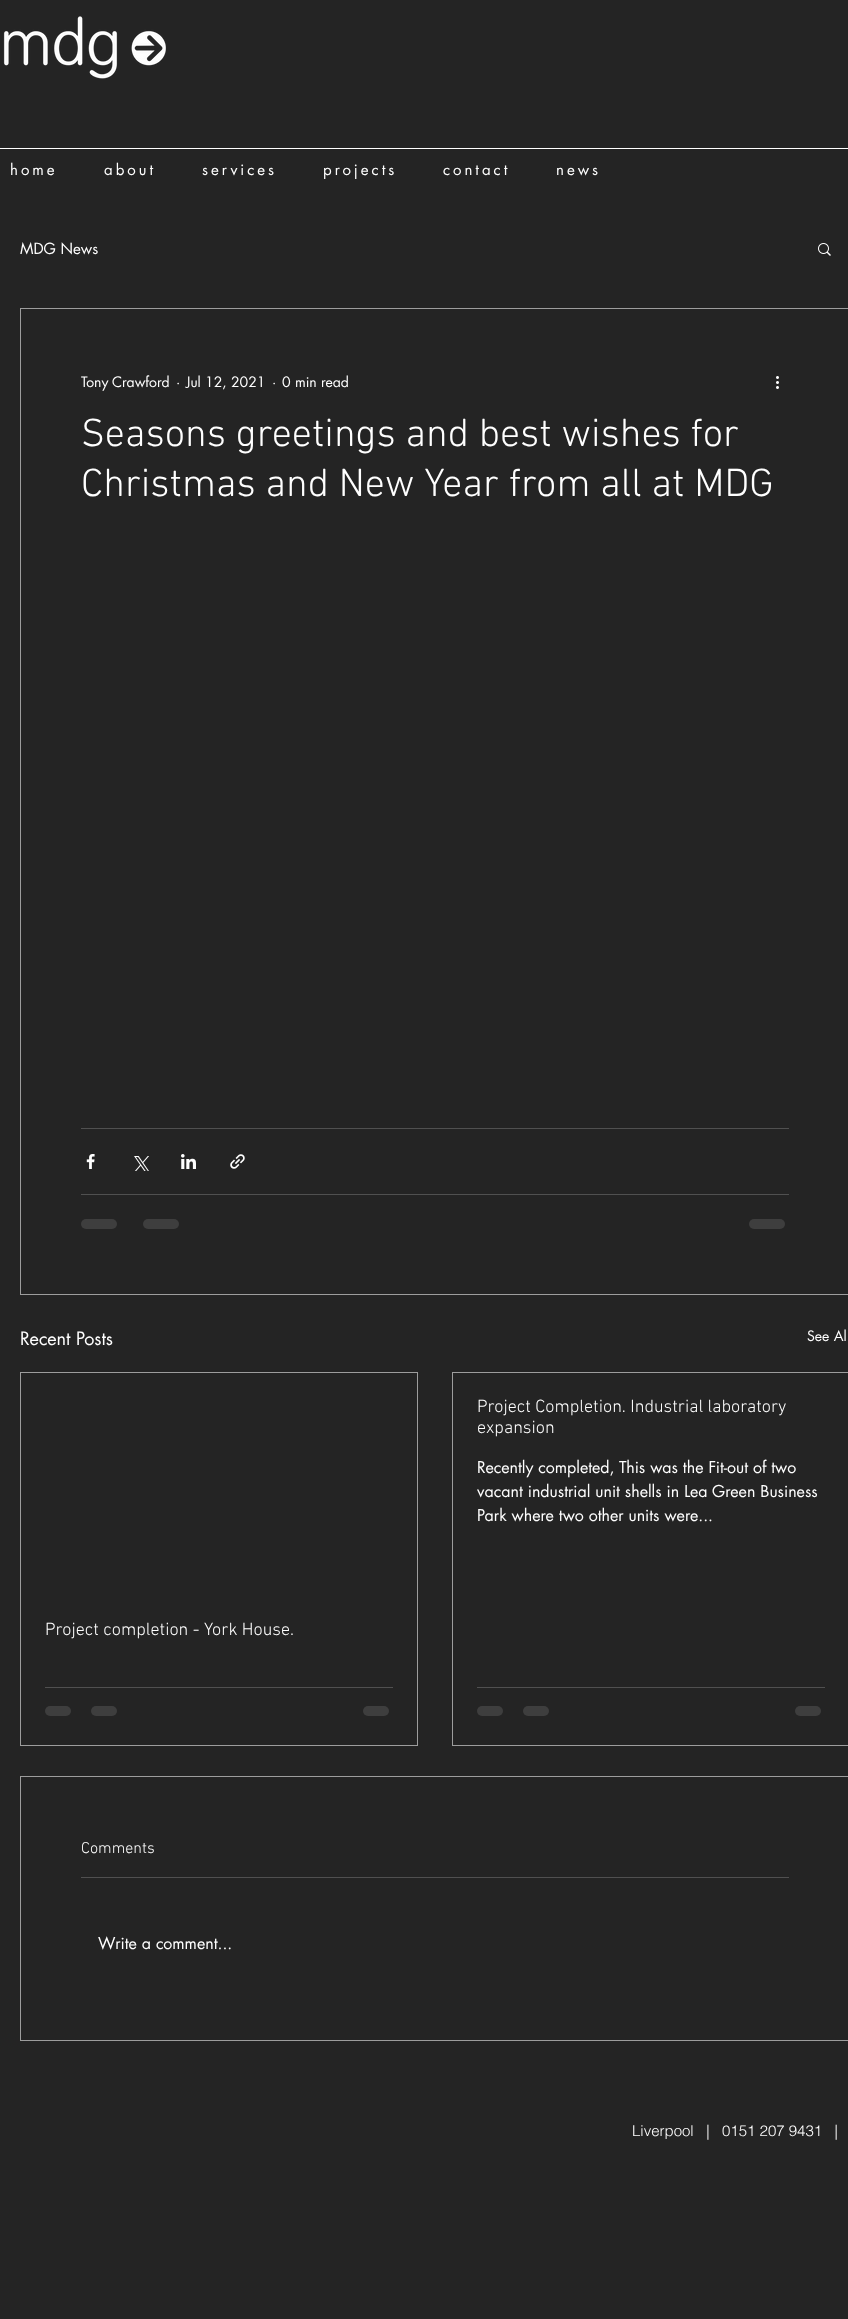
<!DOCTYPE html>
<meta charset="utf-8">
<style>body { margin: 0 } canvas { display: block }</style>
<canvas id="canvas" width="848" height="2319"></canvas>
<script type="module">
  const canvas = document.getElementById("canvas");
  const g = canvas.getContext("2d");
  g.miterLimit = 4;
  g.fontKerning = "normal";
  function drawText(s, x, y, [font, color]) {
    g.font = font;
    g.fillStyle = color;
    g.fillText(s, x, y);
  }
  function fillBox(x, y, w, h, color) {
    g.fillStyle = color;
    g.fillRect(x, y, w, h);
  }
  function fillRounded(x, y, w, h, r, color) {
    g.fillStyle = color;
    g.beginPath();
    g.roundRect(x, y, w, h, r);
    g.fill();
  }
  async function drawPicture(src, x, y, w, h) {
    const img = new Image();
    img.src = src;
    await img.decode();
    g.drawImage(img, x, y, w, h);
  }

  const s1 = ["15px futura", "#FFFFFF"];
  const s2 = ["14px futura", "#FFFFFF"];
  const s3 = ["300 40px 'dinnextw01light'", "#FFFFFF"];
  const s4 = ["18px futura", "#FFFFFF"];
  const s5 = ["300 18px 'dinnextw01light'", "#FFFFFF"];
  const s6 = ["16px futura", "#FFFFFF"];
  const s7 = ["300 16px 'dinnextw01light'", "#FFFFFF"];
  const s8 = ["300 15px helvetica", "#FFFFFF"];

  fillBox(0, 0, 848, 2319, "#242424");
  await drawPicture("pic1.png", 3, 16, 163, 63);
  fillBox(0, 148, 848, 1, "#FFFFFF");
  g.letterSpacing = "3px";
  drawText("home", 10, 175, s1);
  drawText("about", 104, 175, s1);
  drawText("services", 202, 175, s1);
  drawText("projects", 323, 175, s1);
  drawText("contact", 443, 175, s1);
  drawText("news", 556, 175, s1);
  g.letterSpacing = "0px";
  drawText("MDG News", 20, 254, s1);
  await drawPicture("pic2.png", 818, 243, 13, 13);
  g.strokeStyle = "#9D9D9D";
  g.strokeRect(20.5, 308.5, 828, 986);
  drawText("Tony", 81, 387, s2);
  drawText("Crawford", 112, 387, s2);
  drawText("·", 176, 387, s2);
  drawText("Jul 12, 2021", 186, 387, s2);
  drawText("·", 272, 387, s2);
  drawText("0 min read", 282, 387, s2);
  await drawPicture("pic3.png", 776, 376, 3, 13);
  drawText("Seasons greetings and best wishes for", 81, 446, s3);
  drawText("Christmas and New Year from all at MDG", 81, 496, s3);
  fillBox(81, 1128, 708, 1, "#505050");
  await drawPicture("pic4.png", 86, 1154, 9, 15);
  await drawPicture("pic5.png", 134, 1156, 15, 15);
  await drawPicture("pic6.png", 181, 1154, 15, 15);
  await drawPicture("pic7.png", 230, 1154, 15, 15);
  fillBox(81, 1194, 708, 1, "#505050");
  fillRounded(81, 1219, 36, 10, 5, "#3E3E3E");
  fillRounded(143, 1219, 36, 10, 5, "#3E3E3E");
  fillRounded(749, 1219, 36, 10, 5, "#3E3E3E");
  drawText("Recent Posts", 20, 1345, s4);
  drawText("See Al", 807, 1341, s2);
  g.strokeRect(452.5, 1372.5, 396, 373);
  drawText("Project Completion. Industrial laboratory", 477, 1412, s5);
  drawText("expansion", 477, 1433, s5);
  drawText("Recently completed, This was the Fit-out of two", 477, 1473, s6);
  drawText("vacant industrial unit shells in Lea Green Business", 477, 1497, s6);
  drawText("Park where two other units were...", 477, 1521, s6);
  fillBox(477, 1687, 348, 1, "#505050");
  fillRounded(477, 1706, 26, 10, 5, "#3E3E3E");
  fillRounded(523, 1706, 26, 10, 5, "#3E3E3E");
  fillRounded(795, 1706, 26, 10, 5, "#3E3E3E");
  g.strokeRect(20.5, 1372.5, 397, 373);
  drawText("Project completion - York House.", 45, 1635, s5);
  fillBox(45, 1687, 348, 1, "#505050");
  fillRounded(45, 1706, 26, 10, 5, "#3E3E3E");
  fillRounded(91, 1706, 26, 10, 5, "#3E3E3E");
  fillRounded(363, 1706, 26, 10, 5, "#3E3E3E");
  g.strokeRect(20.5, 1776.5, 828, 264);
  drawText("Comments", 81, 1853, s7);
  fillBox(81, 1877, 708, 1, "#505050");
  drawText("Write a comment...", 98, 1949, s6);
  drawText("Liverpool   |   0151 207 9431   |", 632, 2136, s8);
</script>
